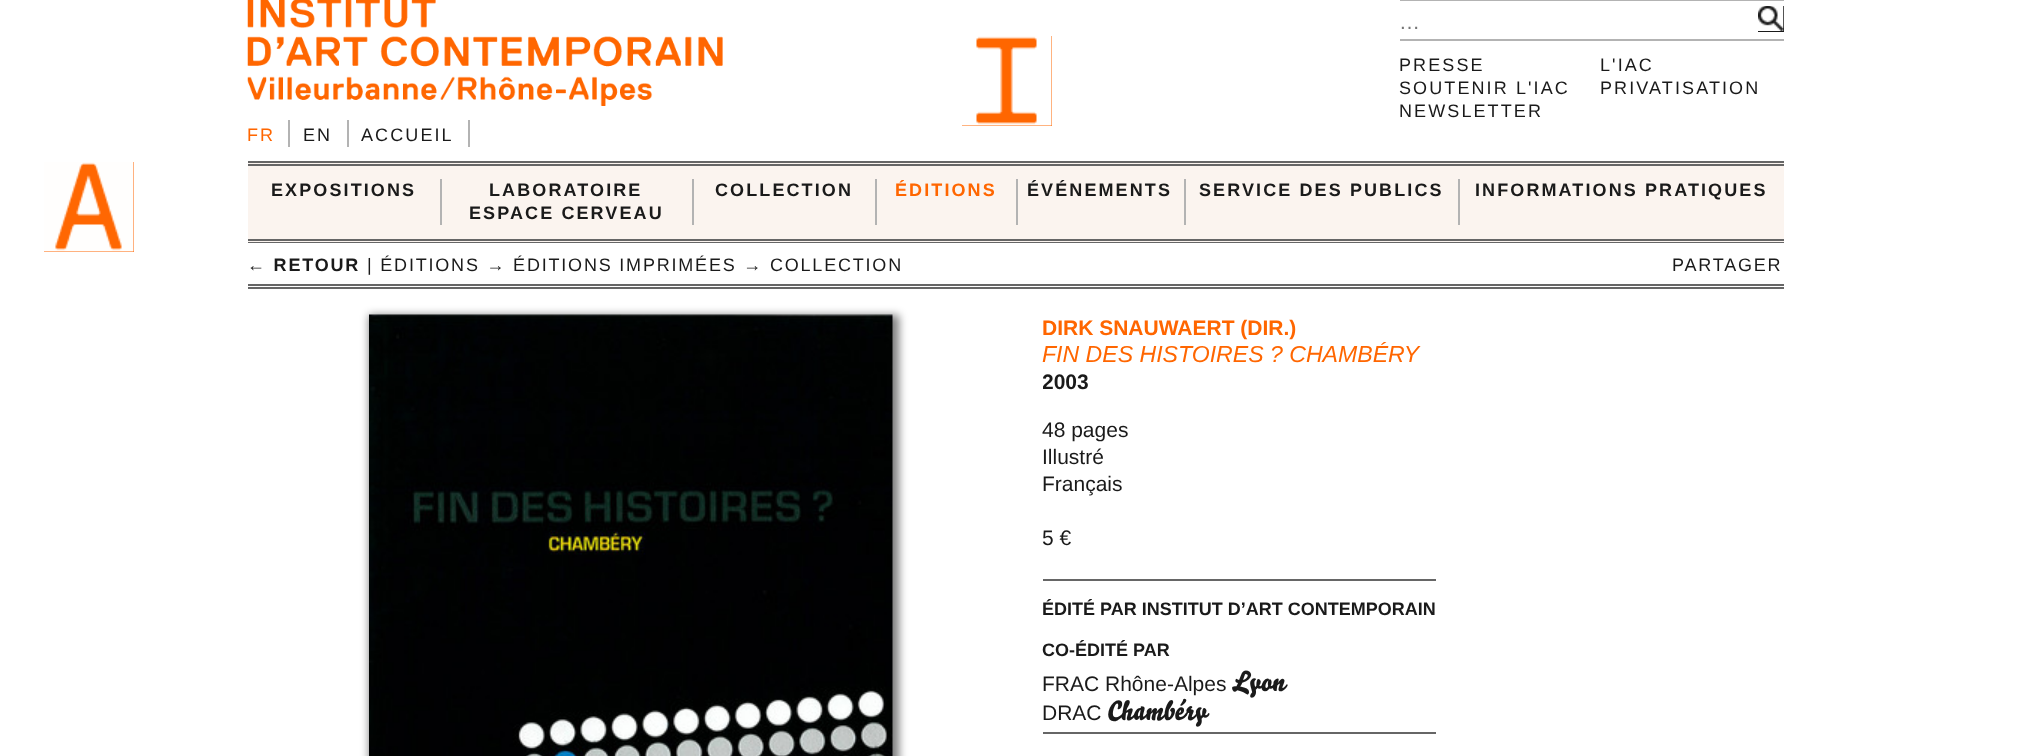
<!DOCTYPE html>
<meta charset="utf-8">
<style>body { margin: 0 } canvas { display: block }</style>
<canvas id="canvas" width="2029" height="756"></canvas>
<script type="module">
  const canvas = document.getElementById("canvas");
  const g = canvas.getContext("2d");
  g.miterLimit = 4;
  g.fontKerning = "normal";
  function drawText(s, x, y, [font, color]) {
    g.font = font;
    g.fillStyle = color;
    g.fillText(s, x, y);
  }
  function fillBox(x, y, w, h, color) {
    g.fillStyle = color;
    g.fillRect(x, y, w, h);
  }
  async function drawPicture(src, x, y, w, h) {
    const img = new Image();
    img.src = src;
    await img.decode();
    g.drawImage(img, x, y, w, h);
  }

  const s1 = ["21px Liberation Sans", "#757575"];
  const s2 = ["18px Liberation Sans", "#FF6600"];
  const s3 = ["18px Liberation Sans", "#1A1A1A"];
  const s4 = ["bold 18px Liberation Sans", "#1A1A1A"];
  const s5 = ["bold 18px Liberation Sans", "#FF6600"];
  const s6 = ["bold 21px Liberation Sans", "#FF6600"];
  const s7 = ["italic 23.1px Liberation Sans", "#FF6600"];
  const s8 = ["bold 21px Liberation Sans", "#1A1A1A"];
  const s9 = ["21px Liberation Sans", "#1A1A1A"];
  const s10 = ["27.5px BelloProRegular", "#1A1A1A"];

  fillBox(0, 0, 2029, 756, "#FFFFFF");
  await drawPicture("pic1.png", 247, 0, 476, 106);
  fillBox(1400, 0, 384, 1, "#B3B3B3");
  fillBox(1400, 39, 384, 2, "#B3B3B3");
  drawText("…", 1399, 29, s1);
  fillBox(1758, 6, 26, 26, "#1A1A1A");
  await drawPicture("pic2.png", 1758, 6, 26, 25);
  fillBox(468, 120, 2, 27, "#B3B3B3");
  g.letterSpacing = "2.1px";
  drawText("FR", 247, 141, s2);
  fillBox(288, 120, 2, 27, "#B3B3B3");
  drawText("EN", 303, 141, s3);
  fillBox(347, 120, 2, 27, "#B3B3B3");
  drawText("ACCUEIL", 361, 141, s3);
  drawText("PRESSE", 1399, 71, s3);
  drawText("SOUTENIR L'IAC", 1399, 94, s3);
  drawText("NEWSLETTER", 1399, 117, s3);
  drawText("L'IAC", 1600, 71, s3);
  drawText("PRIVATISATION", 1600, 94, s3);
  fillBox(248, 163, 1536, 79, "#FBF4EF");
  fillBox(248, 161, 1536, 2, "#666666");
  fillBox(248, 164, 1536, 2, "#666666");
  fillBox(248, 239, 1536, 2, "#666666");
  fillBox(248, 242, 1536, 1, "#666666");
  drawText("EXPOSITIONS", 271, 196, s4);
  fillBox(440, 179, 2, 46, "#B3B3B3");
  drawText("LABORATOIRE", 489, 196, s4);
  drawText("ESPACE CERVEAU", 469, 219, s4);
  fillBox(692, 179, 2, 46, "#B3B3B3");
  drawText("COLLECTION", 715, 196, s4);
  fillBox(875, 179, 2, 46, "#B3B3B3");
  drawText("ÉDITIONS", 895, 196, s5);
  fillBox(1016, 179, 2, 46, "#B3B3B3");
  drawText("ÉVÉNEMENTS", 1027, 196, s4);
  fillBox(1184, 179, 2, 46, "#B3B3B3");
  drawText("SERVICE DES PUBLICS", 1199, 196, s4);
  fillBox(1458, 179, 2, 46, "#B3B3B3");
  drawText("INFORMATIONS PRATIQUES", 1475, 196, s4);
  fillBox(248, 284, 1536, 2, "#666666");
  fillBox(248, 287, 1536, 2, "#666666");
  g.letterSpacing = "1.8px";
  drawText("← RETOUR", 247, 271, s4);
  drawText("| ÉDITIONS → ÉDITIONS IMPRIMÉES → COLLECTION", 367, 271, s3);
  drawText("PARTAGER", 1672, 271, s3);
  g.fillStyle = "rgba(0, 0, 0, 0.5)";
  g.filter = "blur(4px)";
  g.beginPath();
  g.rect(369, 315, 530, 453);
  g.fill();
  g.filter = "none";
  await drawPicture("pic3.png", 369, 314, 524, 442);
  g.letterSpacing = "0px";
  drawText("DIRK SNAUWAERT (DIR.)", 1042, 335, s6);
  drawText("FIN DES HISTOIRES ? CHAMBÉRY", 1042, 362, s7);
  g.save();
  g.beginPath();
  g.rect(1043, 315, 741, 81);
  g.clip();
  drawText("2003", 1042, 389, s8);
  g.restore();
  drawText("48 pages", 1042, 437, s9);
  drawText("Illustré", 1042, 464, s9);
  drawText("Français", 1042, 491, s9);
  drawText("5 €", 1042, 545, s9);
  fillBox(1043, 579, 393, 2, "#666666");
  fillBox(1043, 732, 393, 2, "#666666");
  drawText("ÉDITÉ PAR INSTITUT D’ART CONTEMPORAIN", 1042, 615, s4);
  drawText("CO-ÉDITÉ PAR", 1042, 656, s4);
  drawText("FRAC Rhône-Alpes", 1042, 691, s9);
  drawText("Lyon", 1232, 691, s10);
  drawText("DRAC", 1042, 720, s9);
  drawText("Chambéry", 1107, 720, s10);
  fillBox(962, 36, 90, 90, "#FF6600");
  await drawPicture("pic4.png", 962, 36, 90, 90);
  fillBox(44, 162, 90, 90, "#FF6702");
  await drawPicture("pic5.png", 44, 162, 90, 90);
</script>
